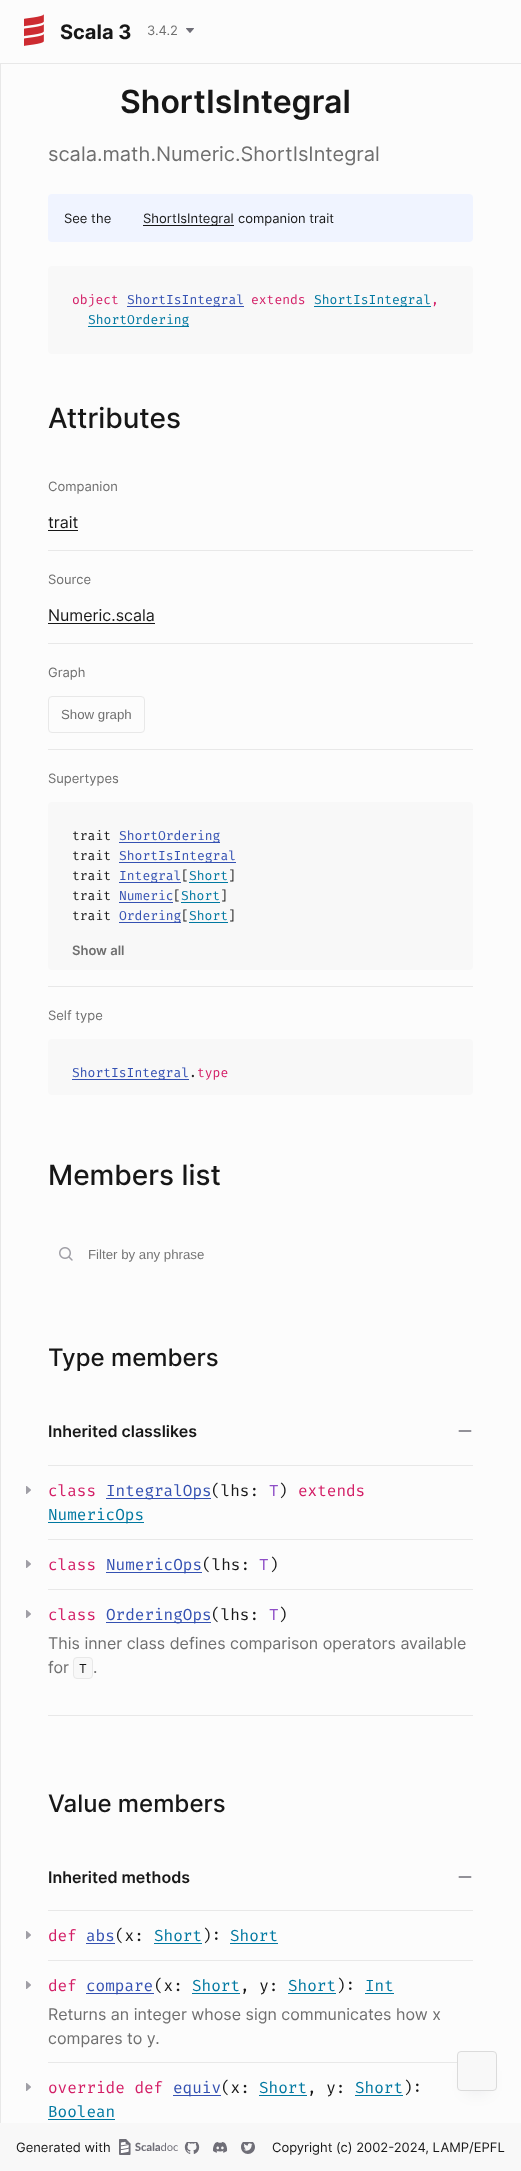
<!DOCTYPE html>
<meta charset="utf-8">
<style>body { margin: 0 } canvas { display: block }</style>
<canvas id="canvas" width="521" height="2171"></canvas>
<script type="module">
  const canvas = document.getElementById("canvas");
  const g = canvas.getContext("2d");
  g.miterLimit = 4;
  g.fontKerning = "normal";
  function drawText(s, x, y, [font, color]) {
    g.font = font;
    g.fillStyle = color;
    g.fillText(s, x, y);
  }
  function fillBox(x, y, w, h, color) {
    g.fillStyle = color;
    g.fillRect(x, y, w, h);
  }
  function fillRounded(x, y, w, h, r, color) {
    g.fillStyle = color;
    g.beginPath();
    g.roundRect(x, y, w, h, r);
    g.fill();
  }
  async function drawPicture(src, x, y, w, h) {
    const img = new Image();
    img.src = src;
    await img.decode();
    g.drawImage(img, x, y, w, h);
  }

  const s1 = ["bold 20px Inter", "#171717"];
  const s2 = ["13px Inter", "#6F6F6F"];
  const s3 = ["600 32px Inter", "#171717"];
  const s4 = ["20px Inter", "#6F6F6F"];
  const s5 = ["13px Inter", "#171717"];
  const s6 = ["13px Fira Code", "#D31E66"];
  const s7 = ["13px Fira Code", "#3451B2"];
  const s8 = ["13px Fira Code", "#0078A1"];
  const s9 = ["500 28px Inter", "#171717"];
  const s10 = ["16px Inter", "#171717"];
  const s11 = ["13.25px Liberation Sans", "#6F6F6F"];
  const s12 = ["13px Fira Code", "#171717"];
  const s13 = ["600 13px Inter", "#6F6F6F"];
  const s14 = ["13.25px Liberation Sans", "#757575"];
  const s15 = ["500 24px Inter", "#171717"];
  const s16 = ["600 16px Inter", "#171717"];
  const s17 = ["16px Fira Code", "#D31E66"];
  const s18 = ["16px Fira Code", "#3451B2"];
  const s19 = ["16px Fira Code", "#171717"];
  const s20 = ["16px Fira Code", "#8E4EC6"];
  const s21 = ["16px Fira Code", "#0078A1"];
  const s22 = ["16px Inter", "#6F6F6F"];

  fillBox(0, 0, 521, 2171, "#FCFCFC");
  fillBox(0, 63, 521, 1, "#E8E8E8");
  await drawPicture("pic1.png", 24, 14, 20, 32);
  drawText("Scala 3", 60, 39, s1);
  drawText("3.4.2", 147, 35, s2);
  await drawPicture("pic2.png", 186, 28, 8, 5);
  fillBox(0, 64, 1, 2060, "#E8E8E8");
  drawText("ShortIsIntegral", 120, 113, s3);
  drawText("scala.math.Numeric.ShortIsIntegral", 48, 161, s4);
  fillRounded(48, 194, 425, 48, 4, "#F0F4FF");
  drawText("See the", 64, 223, s5);
  fillBox(143, 225, 91, 1, "#171717");
  drawText("ShortIsIntegral", 143, 223, s5);
  drawText("companion trait", 238, 223, s5);
  fillRounded(48, 266, 425, 88, 4, "#F8F8F8");
  drawText("object", 72, 304, s6);
  fillBox(127, 306, 117, 1, "#3451B2");
  drawText("ShortIsIntegral", 127, 304, s7);
  drawText("extends", 251, 304, s6);
  fillBox(314, 306, 117, 1, "#0078A1");
  drawText("ShortIsIntegral", 314, 304, s8);
  drawText(",", 431, 304, s6);
  fillBox(88, 326, 101, 1, "#0078A1");
  drawText("ShortOrdering", 88, 324, s8);
  drawText("Attributes", 48, 428, s9);
  drawText("Companion", 48, 491, s2);
  drawText("trait", 48, 528, s10);
  fillBox(48, 530, 30, 1, "#171717");
  fillBox(48, 550, 425, 1, "#E8E8E8");
  drawText("Source", 48, 584, s2);
  drawText("Numeric.scala", 48, 621, s10);
  fillBox(48, 623, 107, 1, "#171717");
  fillBox(48, 643, 425, 1, "#E8E8E8");
  drawText("Graph", 48, 677, s2);
  g.beginPath();
  g.roundRect(48.5, 696.5, 96, 36, 3.5);
  g.strokeStyle = "#E8E8E8";
  g.stroke();
  drawText("Show graph", 61, 719, s11);
  fillBox(48, 749, 425, 1, "#E8E8E8");
  drawText("Supertypes", 48, 783, s2);
  fillRounded(48, 802, 425, 168, 4, "#F8F8F8");
  drawText("trait", 72, 840, s12);
  fillBox(119, 842, 101, 1, "#3451B2");
  drawText("ShortOrdering", 119, 840, s7);
  drawText("trait", 72, 860, s12);
  fillBox(119, 862, 117, 1, "#3451B2");
  drawText("ShortIsIntegral", 119, 860, s7);
  drawText("trait", 72, 880, s12);
  fillBox(119, 882, 62, 1, "#3451B2");
  drawText("Integral", 119, 880, s7);
  drawText("[", 181, 880, s12);
  drawText("Short", 189, 880, s8);
  fillBox(189, 882, 39, 1, "#0078A1");
  drawText("]", 228, 880, s12);
  drawText("trait", 72, 900, s12);
  drawText("Numeric", 119, 900, s7);
  fillBox(119, 902, 54, 1, "#3451B2");
  drawText("[", 173, 900, s12);
  drawText("Short", 181, 900, s8);
  fillBox(181, 902, 39, 1, "#0078A1");
  drawText("]", 220, 900, s12);
  drawText("trait", 72, 920, s12);
  fillBox(119, 922, 62, 1, "#3451B2");
  drawText("Ordering", 119, 920, s7);
  drawText("[", 181, 920, s12);
  drawText("Short", 189, 920, s8);
  fillBox(189, 922, 39, 1, "#0078A1");
  drawText("]", 228, 920, s12);
  drawText("Show all", 72, 955, s13);
  fillBox(48, 986, 425, 1, "#E8E8E8");
  drawText("Self type", 48, 1020, s2);
  fillRounded(48, 1039, 425, 56, 4, "#F8F8F8");
  fillBox(72, 1079, 117, 1, "#3451B2");
  drawText("ShortIsIntegral", 72, 1077, s7);
  drawText(".", 189, 1077, s12);
  drawText("type", 197, 1077, s6);
  drawText("Members list", 48, 1185, s9);
  await drawPicture("pic3.png", 59, 1247, 14, 14);
  drawText("Filter by any phrase", 88, 1259, s14);
  drawText("Type members", 48, 1366, s15);
  fillBox(48, 1715, 425, 1, "#E8E8E8");
  drawText("Inherited classlikes", 48, 1437, s16);
  await drawPicture("pic4.png", 458, 1430, 14, 2);
  fillBox(48, 1465, 425, 1, "#E8E8E8");
  await drawPicture("pic5.png", 26, 1486, 5, 8);
  drawText("class", 48, 1496, s17);
  fillBox(106, 1498, 105, 1, "#3451B2");
  drawText("IntegralOps", 106, 1496, s18);
  drawText("(lhs:", 211, 1496, s19);
  drawText("T", 269, 1496, s20);
  drawText(")", 278, 1496, s19);
  drawText("extends", 298, 1496, s17);
  fillBox(48, 1522, 96, 1, "#0078A1");
  drawText("NumericOps", 48, 1520, s21);
  fillBox(48, 1539, 425, 1, "#E8E8E8");
  await drawPicture("pic5.png", 26, 1560, 5, 8);
  drawText("class", 48, 1570, s17);
  fillBox(106, 1572, 96, 1, "#3451B2");
  drawText("NumericOps", 106, 1570, s18);
  drawText("(lhs:", 202, 1570, s19);
  drawText("T", 259, 1570, s20);
  drawText(")", 269, 1570, s19);
  fillBox(48, 1589, 425, 1, "#E8E8E8");
  await drawPicture("pic5.png", 26, 1610, 5, 8);
  drawText("class", 48, 1620, s17);
  fillBox(106, 1622, 105, 1, "#3451B2");
  drawText("OrderingOps", 106, 1620, s18);
  drawText("(lhs:", 211, 1620, s19);
  drawText("T", 269, 1620, s20);
  drawText(")", 278, 1620, s19);
  drawText("This inner class defines comparison operators available", 48, 1649, s22);
  drawText("for", 48, 1673, s22);
  g.fillStyle = "#F8F8F8";
  g.beginPath();
  g.roundRect(73.5, 1657.5, 19, 21, 3.5);
  g.fill();
  g.stroke();
  drawText("T", 79, 1673, s12);
  drawText(".", 93, 1673, s22);
  drawText("Value members", 48, 1812, s15);
  drawText("Inherited methods", 48, 1883, s16);
  await drawPicture("pic4.png", 458, 1876, 14, 2);
  fillBox(48, 1910, 425, 1, "#E8E8E8");
  await drawPicture("pic5.png", 26, 1931, 5, 8);
  drawText("def", 48, 1941, s17);
  drawText("abs", 86, 1941, s18);
  fillBox(86, 1943, 29, 1, "#3451B2");
  drawText("(x:", 115, 1941, s19);
  drawText("Short", 154, 1941, s21);
  fillBox(154, 1943, 48, 1, "#0078A1");
  drawText("):", 202, 1941, s19);
  drawText("Short", 230, 1941, s21);
  fillBox(230, 1943, 48, 1, "#0078A1");
  fillBox(48, 1960, 425, 1, "#E8E8E8");
  await drawPicture("pic5.png", 26, 1981, 5, 8);
  drawText("def", 48, 1991, s17);
  fillBox(86, 1993, 68, 1, "#3451B2");
  drawText("compare", 86, 1991, s18);
  drawText("(x:", 154, 1991, s19);
  drawText("Short", 192, 1991, s21);
  fillBox(192, 1993, 48, 1, "#0078A1");
  drawText(", y:", 240, 1991, s19);
  drawText("Short", 288, 1991, s21);
  fillBox(288, 1993, 48, 1, "#0078A1");
  drawText("):", 336, 1991, s19);
  drawText("Int", 365, 1991, s21);
  fillBox(365, 1993, 29, 1, "#0078A1");
  drawText("Returns an integer whose sign communicates how x", 48, 2020, s22);
  drawText("compares to y.", 48, 2044, s22);
  fillBox(48, 2062, 409, 1, "#E8E8E8");
  await drawPicture("pic5.png", 26, 2083, 5, 8);
  drawText("override def", 48, 2093, s17);
  fillBox(173, 2095, 48, 1, "#3451B2");
  drawText("equiv", 173, 2093, s18);
  drawText("(x:", 221, 2093, s19);
  drawText("Short", 259, 2093, s21);
  fillBox(259, 2095, 48, 1, "#0078A1");
  drawText(", y:", 307, 2093, s19);
  drawText("Short", 355, 2093, s21);
  fillBox(355, 2095, 48, 1, "#0078A1");
  drawText("):", 403, 2093, s19);
  drawText("Boolean", 48, 2117, s21);
  fillBox(48, 2119, 67, 1, "#0078A1");
  g.fillStyle = "rgba(14, 18, 22, 0.35)";
  g.filter = "blur(10px)";
  g.beginPath();
  g.rect(472, 2076, 10, 10);
  g.fill();
  g.filter = "none";
  g.fillStyle = "#F8F8F8";
  g.beginPath();
  g.roundRect(457.5, 2051.5, 39, 39, 3.5);
  g.fill();
  g.strokeStyle = "#DBDBDB";
  g.stroke();
  fillBox(0, 2123, 521, 48, "#F8F8F8");
  drawText("Generated with", 16, 2152, s5);
  await drawPicture("pic6.png", 119, 2139, 59, 16);
  await drawPicture("pic7.png", 184, 2142, 16, 12);
  await drawPicture("pic8.png", 213, 2142, 15, 11);
  await drawPicture("pic9.png", 241, 2142, 14, 12);
  drawText("Copyright (c) 2002-2024, LAMP/EPFL", 272, 2152, s5);
</script>
